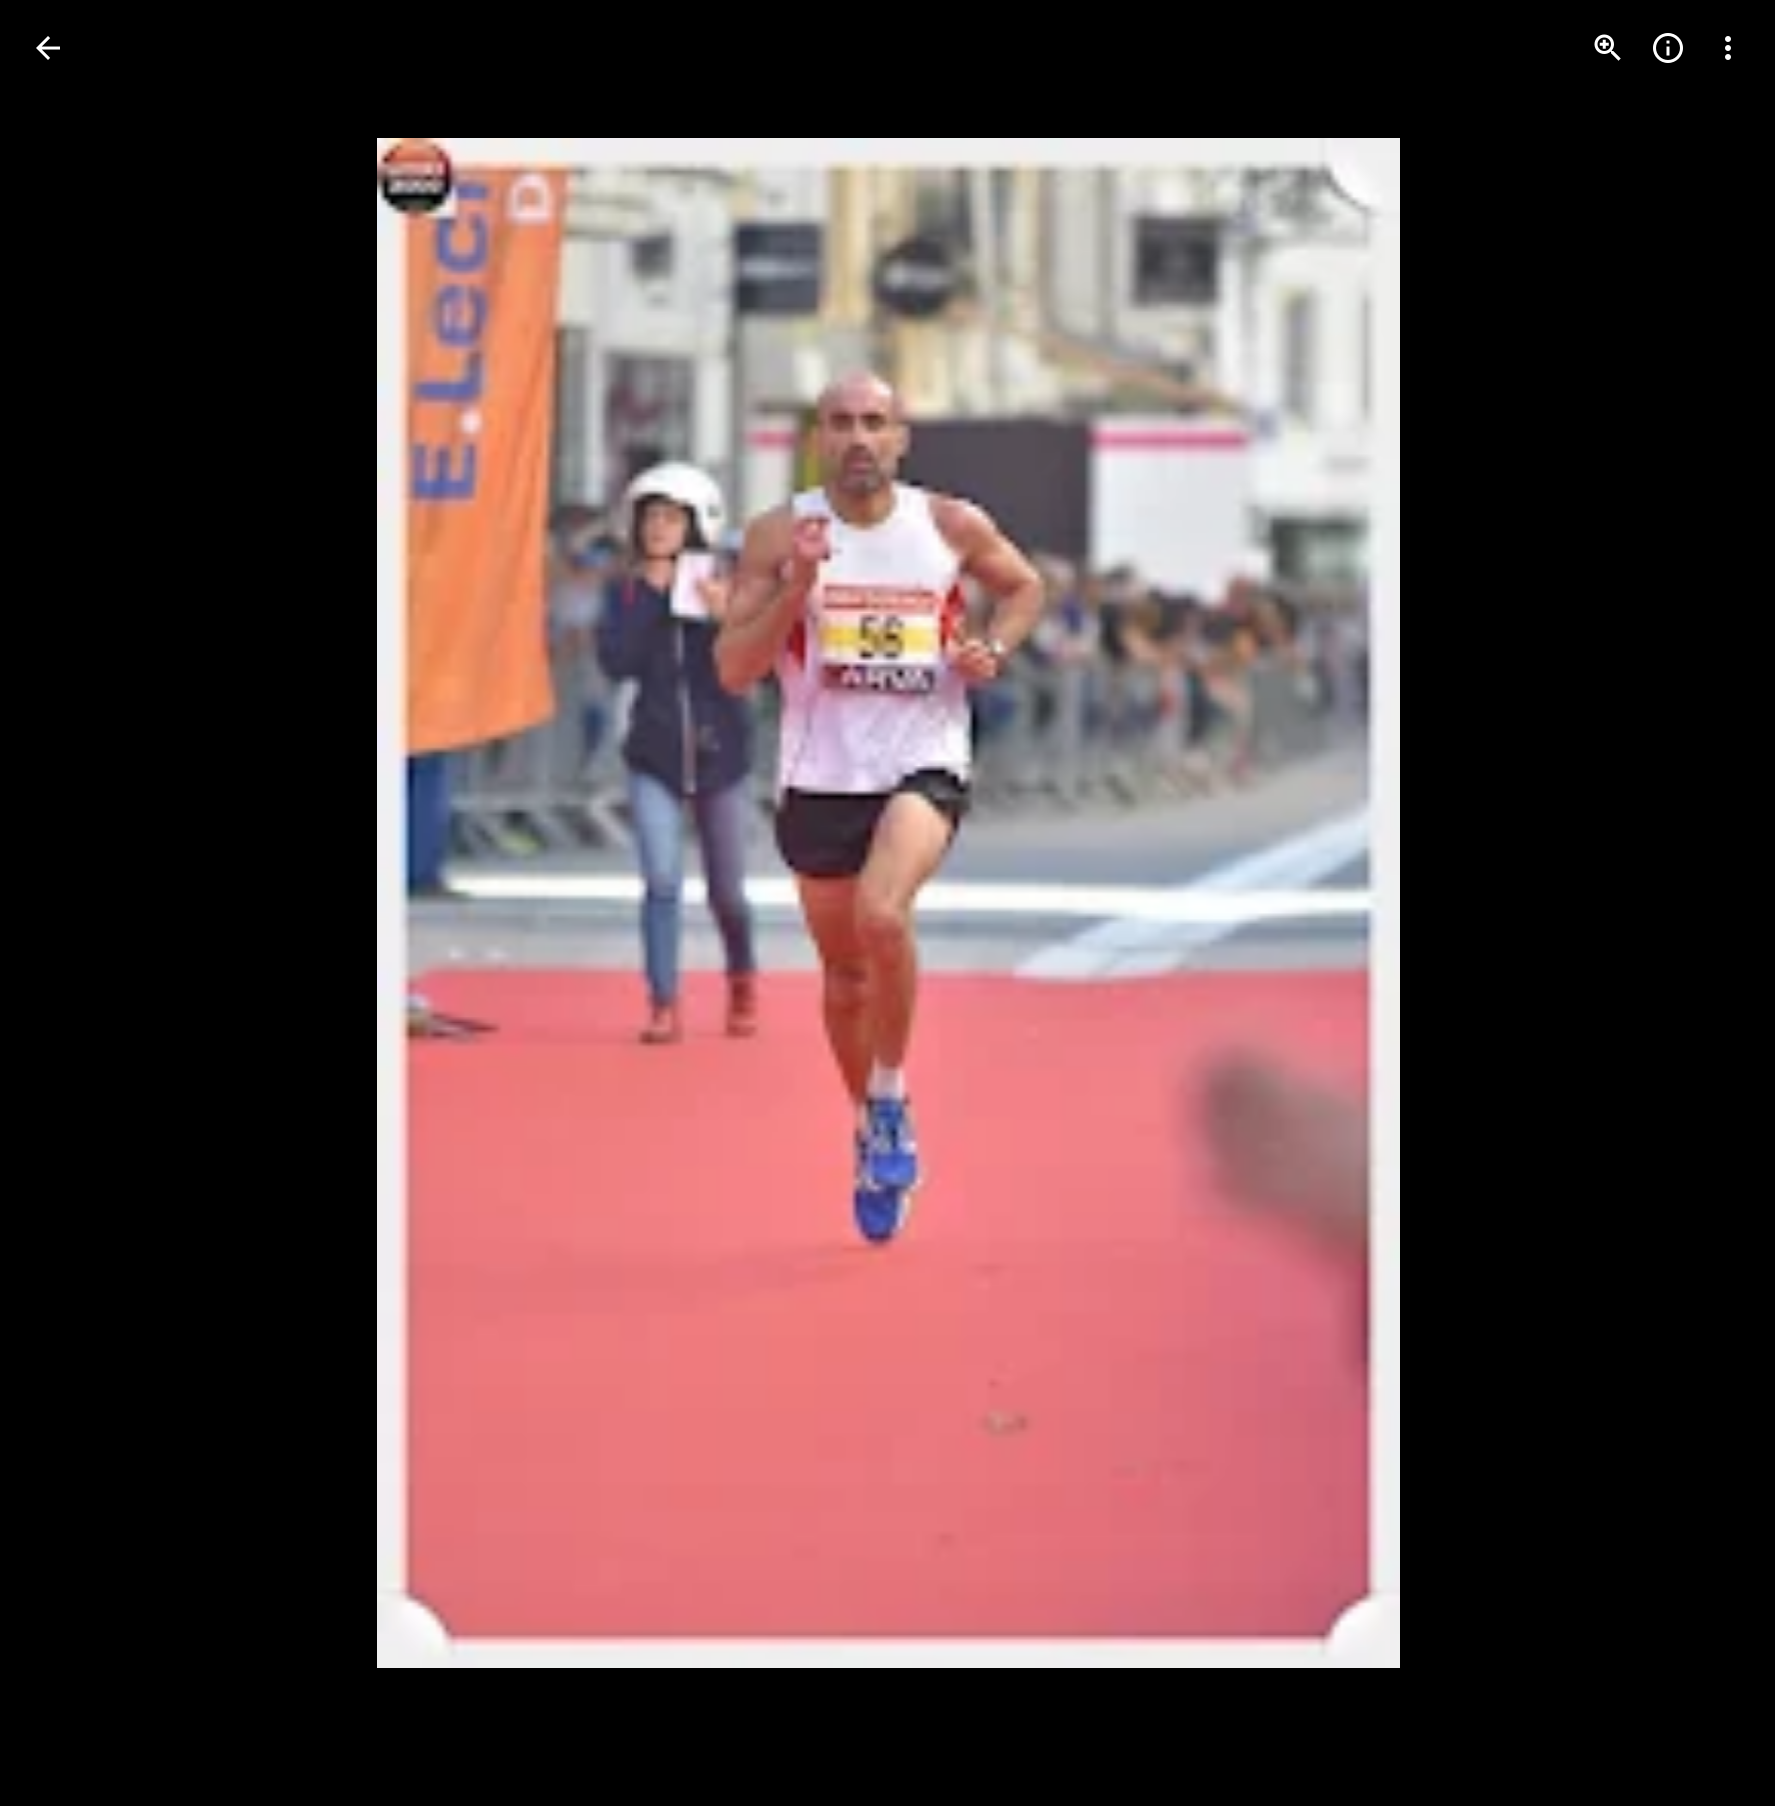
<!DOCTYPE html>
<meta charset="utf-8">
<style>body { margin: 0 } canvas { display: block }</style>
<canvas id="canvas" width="1775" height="1806"></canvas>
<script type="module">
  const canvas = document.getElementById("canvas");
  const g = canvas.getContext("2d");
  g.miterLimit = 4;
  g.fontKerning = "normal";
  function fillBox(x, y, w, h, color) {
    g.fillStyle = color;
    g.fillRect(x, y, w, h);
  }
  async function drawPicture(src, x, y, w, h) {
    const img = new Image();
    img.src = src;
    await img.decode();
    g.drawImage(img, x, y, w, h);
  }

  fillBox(0, 0, 1775, 1806, "#000000");
  await drawPicture("pic1.png", 36, 36, 24, 24);
  await drawPicture("pic2.png", 1594, 34, 27, 27);
  await drawPicture("pic3.png", 1653, 33, 30, 30);
  await drawPicture("pic4.png", 1725, 36, 6, 24);
  await drawPicture("pic5.png", 377, 138, 1023, 1530);
</script>
